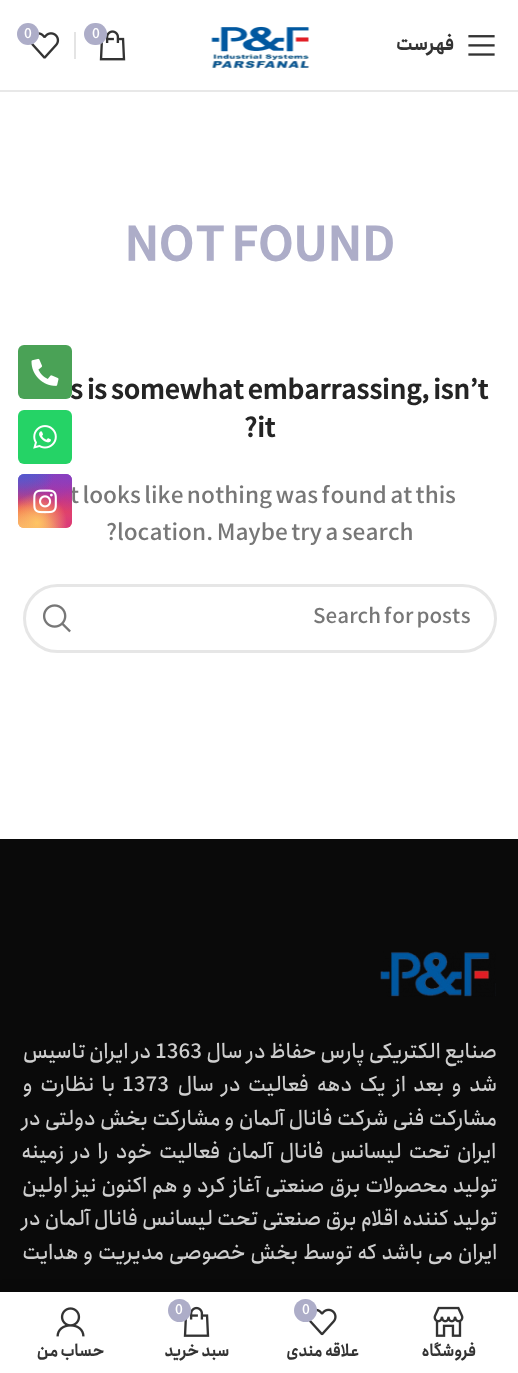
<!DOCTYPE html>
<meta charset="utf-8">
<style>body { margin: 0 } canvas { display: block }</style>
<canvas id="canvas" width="518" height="1373"></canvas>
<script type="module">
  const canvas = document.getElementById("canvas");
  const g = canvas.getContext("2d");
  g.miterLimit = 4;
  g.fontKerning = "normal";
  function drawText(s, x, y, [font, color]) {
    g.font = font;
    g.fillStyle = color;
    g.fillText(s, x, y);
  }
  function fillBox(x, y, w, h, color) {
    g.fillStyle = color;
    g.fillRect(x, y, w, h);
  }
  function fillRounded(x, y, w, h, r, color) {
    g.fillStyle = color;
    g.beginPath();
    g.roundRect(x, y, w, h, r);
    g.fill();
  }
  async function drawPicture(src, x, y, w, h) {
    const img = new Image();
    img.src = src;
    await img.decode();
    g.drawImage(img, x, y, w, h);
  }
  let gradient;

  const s1 = ["bold 19.5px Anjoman", "#333333"];
  const s2 = ["500 14px Anjoman", "#FFFFFF"];
  const s3 = ["bold 48px Anjoman", "#ADADC8"];
  const s4 = ["bold 27px Anjoman", "#242424"];
  const s5 = ["500 23.1px Anjoman", "#777777"];
  const s6 = ["500 21px Anjoman", "#777777"];
  const s7 = ["500 21px Anjoman", "#CECECE"];
  const s8 = ["bold 16.5px Anjoman", "#333333"];

  fillBox(0, 0, 518, 1373, "#FFFFFF");
  fillBox(0, 90, 518, 2, "#E8E8E8");
  await drawPicture("pic1.png", 468, 35, 27, 21);
  g.direction = "rtl";
  drawText("فهرست", 454, 50, s1);
  await drawPicture("pic2.png", 211, 26, 99, 42);
  await drawPicture("pic3.png", 99, 30, 27, 31);
  fillRounded(84, 23, 23, 22, 11, "#ADADC8");
  g.direction = "ltr";
  drawText("0", 92, 38, s2);
  fillBox(74, 32, 2, 27, "#E4E4E4");
  await drawPicture("pic4.png", 31, 32, 29, 27);
  g.fillStyle = "#ADADC8";
  g.beginPath();
  g.arc(28, 34, 11, 0, Math.PI * 2);
  g.fill();
  drawText("0", 24, 38, s2);
  drawText("NOT FOUND", 124, 261, s3);
  drawText("s is somewhat embarrassing, isn’t", 70, 399, s4);
  drawText("?it", 244, 437, s4);
  drawText("t looks like nothing was found at this", 70, 503, s5);
  drawText("?location. Maybe try a search", 106, 540, s5);
  g.beginPath();
  g.roundRect(24.5, 585.5, 471, 66, 33);
  g.strokeStyle = "#E6E6E6";
  g.lineWidth = 3;
  g.stroke();
  drawText("Search for posts", 313, 623, s6);
  await drawPicture("pic5.png", 43, 604, 28, 29);
  fillBox(0, 839, 518, 453, "#0A0A0A");
  fillRounded(18, 345, 54, 54, 6, "#4AA256");
  await drawPicture("pic6.png", 31, 358, 28, 28);
  fillRounded(18, 410, 54, 54, 6, "#25D366");
  await drawPicture("pic7.png", 33, 425, 24, 24);
  gradient = g.createLinearGradient(45, 474, 45, 528);
  gradient.addColorStop(0, "#6559CA");
  gradient.addColorStop(0.3, "#BC318F");
  gradient.addColorStop(0.5, "#E33F5F");
  gradient.addColorStop(0.7, "#F77638");
  gradient.addColorStop(1, "#FEC66D");
  g.fillStyle = gradient;
  g.beginPath();
  g.roundRect(18, 474, 54, 54, 6);
  g.fill();
  gradient = g.createRadialGradient(72, 528, 0, 72, 528, 76);
  gradient.addColorStop(0, "#D9317A");
  gradient.addColorStop(1, "rgba(217, 49, 122, 0)");
  g.fillStyle = gradient;
  g.beginPath();
  g.roundRect(18, 474, 54, 54, 6);
  g.fill();
  gradient = g.createRadialGradient(50, 231.5, 0, 50, 231.5, 46);
  gradient.addColorStop(0, "#893DC2");
  gradient.addColorStop(0.5, "rgba(137, 61, 194, 0)");
  g.fillStyle = gradient;
  g.beginPath();
  g.roundRect(18, 474, 54, 54, 6);
  g.save();
  g.clip();
  g.scale(1, 92 / 46);
  g.fillRect(0, 0, 518, 687);
  g.restore();
  gradient = g.createRadialGradient(72, 474, 0, 72, 474, 76);
  gradient.addColorStop(0, "#893DC2");
  gradient.addColorStop(0.5, "rgba(137, 61, 194, 0)");
  g.fillStyle = gradient;
  g.beginPath();
  g.roundRect(18, 474, 54, 54, 6);
  g.fill();
  gradient = g.createRadialGradient(29, 237.1, 0, 29, 237.1, 61);
  gradient.addColorStop(0, "#5258CF");
  gradient.addColorStop(0.5, "rgba(82, 88, 207, 0)");
  g.fillStyle = gradient;
  g.beginPath();
  g.roundRect(18, 474, 54, 54, 6);
  g.save();
  g.clip();
  g.scale(1, 115 / 61);
  g.fillRect(0, 0, 518, 729);
  g.restore();
  gradient = g.createRadialGradient(18, 368.8, 0, 18, 368.8, 76);
  gradient.addColorStop(0, "#5258CF");
  gradient.addColorStop(0.5, "rgba(82, 88, 207, 0)");
  g.fillStyle = gradient;
  g.beginPath();
  g.roundRect(18, 474, 54, 54, 6);
  g.save();
  g.clip();
  g.scale(1, 95 / 76);
  g.fillRect(0, 0, 518, 1099);
  g.restore();
  gradient = g.createRadialGradient(18, 550, 0, 18, 550, 93);
  gradient.addColorStop(0, "#FEC564");
  gradient.addColorStop(0.5, "rgba(254, 197, 100, 0)");
  g.fillStyle = gradient;
  g.beginPath();
  g.roundRect(18, 474, 54, 54, 6);
  g.fill();
  gradient = g.createRadialGradient(37, 523, 0, 37, 523, 60);
  gradient.addColorStop(0, "#FEC564");
  gradient.addColorStop(0.5, "rgba(254, 197, 100, 0)");
  g.fillStyle = gradient;
  g.beginPath();
  g.roundRect(18, 474, 54, 54, 6);
  g.fill();
  await drawPicture("pic8.png", 33, 489, 24, 25);
  await drawPicture("pic9.png", 380, 951, 116, 46);
  g.wordSpacing = "0.75px";
  g.direction = "rtl";
  drawText("صنایع الکتریکی پارس حفاظ در سال", 497, 1058, s7);
  g.wordSpacing = "0px";
  g.direction = "ltr";
  drawText("1363", 155, 1058, s7);
  g.wordSpacing = "0.75px";
  g.direction = "rtl";
  drawText("در ایران تاسیس", 151, 1058, s7);
  g.wordSpacing = "4.5px";
  drawText("شد و بعد از یک دهه فعالیت در سال", 497, 1091, s7);
  g.wordSpacing = "0px";
  g.direction = "ltr";
  drawText("1373", 122, 1091, s7);
  g.wordSpacing = "4.5px";
  g.direction = "rtl";
  drawText("با نظارت و", 115, 1091, s7);
  g.wordSpacing = "1.25px";
  drawText("مشارکت فنی شرکت فانال آلمان و مشارکت بخش دولتی در", 497, 1125, s7);
  g.wordSpacing = "4px";
  drawText("ایران تحت لیسانس فانال آلمان فعالیت خود را در زمینه", 496, 1158, s7);
  g.wordSpacing = "1.75px";
  drawText("تولید محصولات برق صنعتی آغاز کرد و هم اکنون نیز اولین", 497, 1192, s7);
  g.wordSpacing = "1px";
  drawText("تولید کننده اقلام برق صنعتی تحت لیسانس فانال آلمان در", 497, 1225, s7);
  g.wordSpacing = "1.75px";
  drawText("ایران می باشد که توسط بخش خصوصی مدیریت و هدایت", 497, 1259, s7);
  g.fillStyle = "rgba(0, 0, 0, 0.12)";
  g.filter = "blur(7px)";
  g.beginPath();
  g.rect(0, 1292, 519, 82);
  g.fill();
  g.filter = "none";
  fillBox(0, 1292, 518, 81, "#FFFFFF");
  await drawPicture("pic10.png", 433, 1306, 31, 31);
  g.wordSpacing = "0px";
  drawText("فروشگاه", 476, 1356, s8);
  await drawPicture("pic11.png", 308, 1308, 29, 28);
  g.fillStyle = "#ADADC8";
  g.beginPath();
  g.arc(305.5, 1310.5, 11.5, 0, Math.PI * 2);
  g.fill();
  g.direction = "ltr";
  drawText("0", 302, 1314, s2);
  g.direction = "rtl";
  drawText("علاقه مندی", 359, 1356, s8);
  await drawPicture("pic12.png", 183, 1306, 27, 31);
  g.fillStyle = "#ADADC8";
  g.beginPath();
  g.arc(179.5, 1310.5, 11.5, 0, Math.PI * 2);
  g.fill();
  g.direction = "ltr";
  drawText("0", 175, 1314, s2);
  g.direction = "rtl";
  drawText("سبد خرید", 229, 1356, s8);
  await drawPicture("pic13.png", 56, 1307, 29, 30);
  drawText("حساب من", 104, 1356, s8);
</script>
